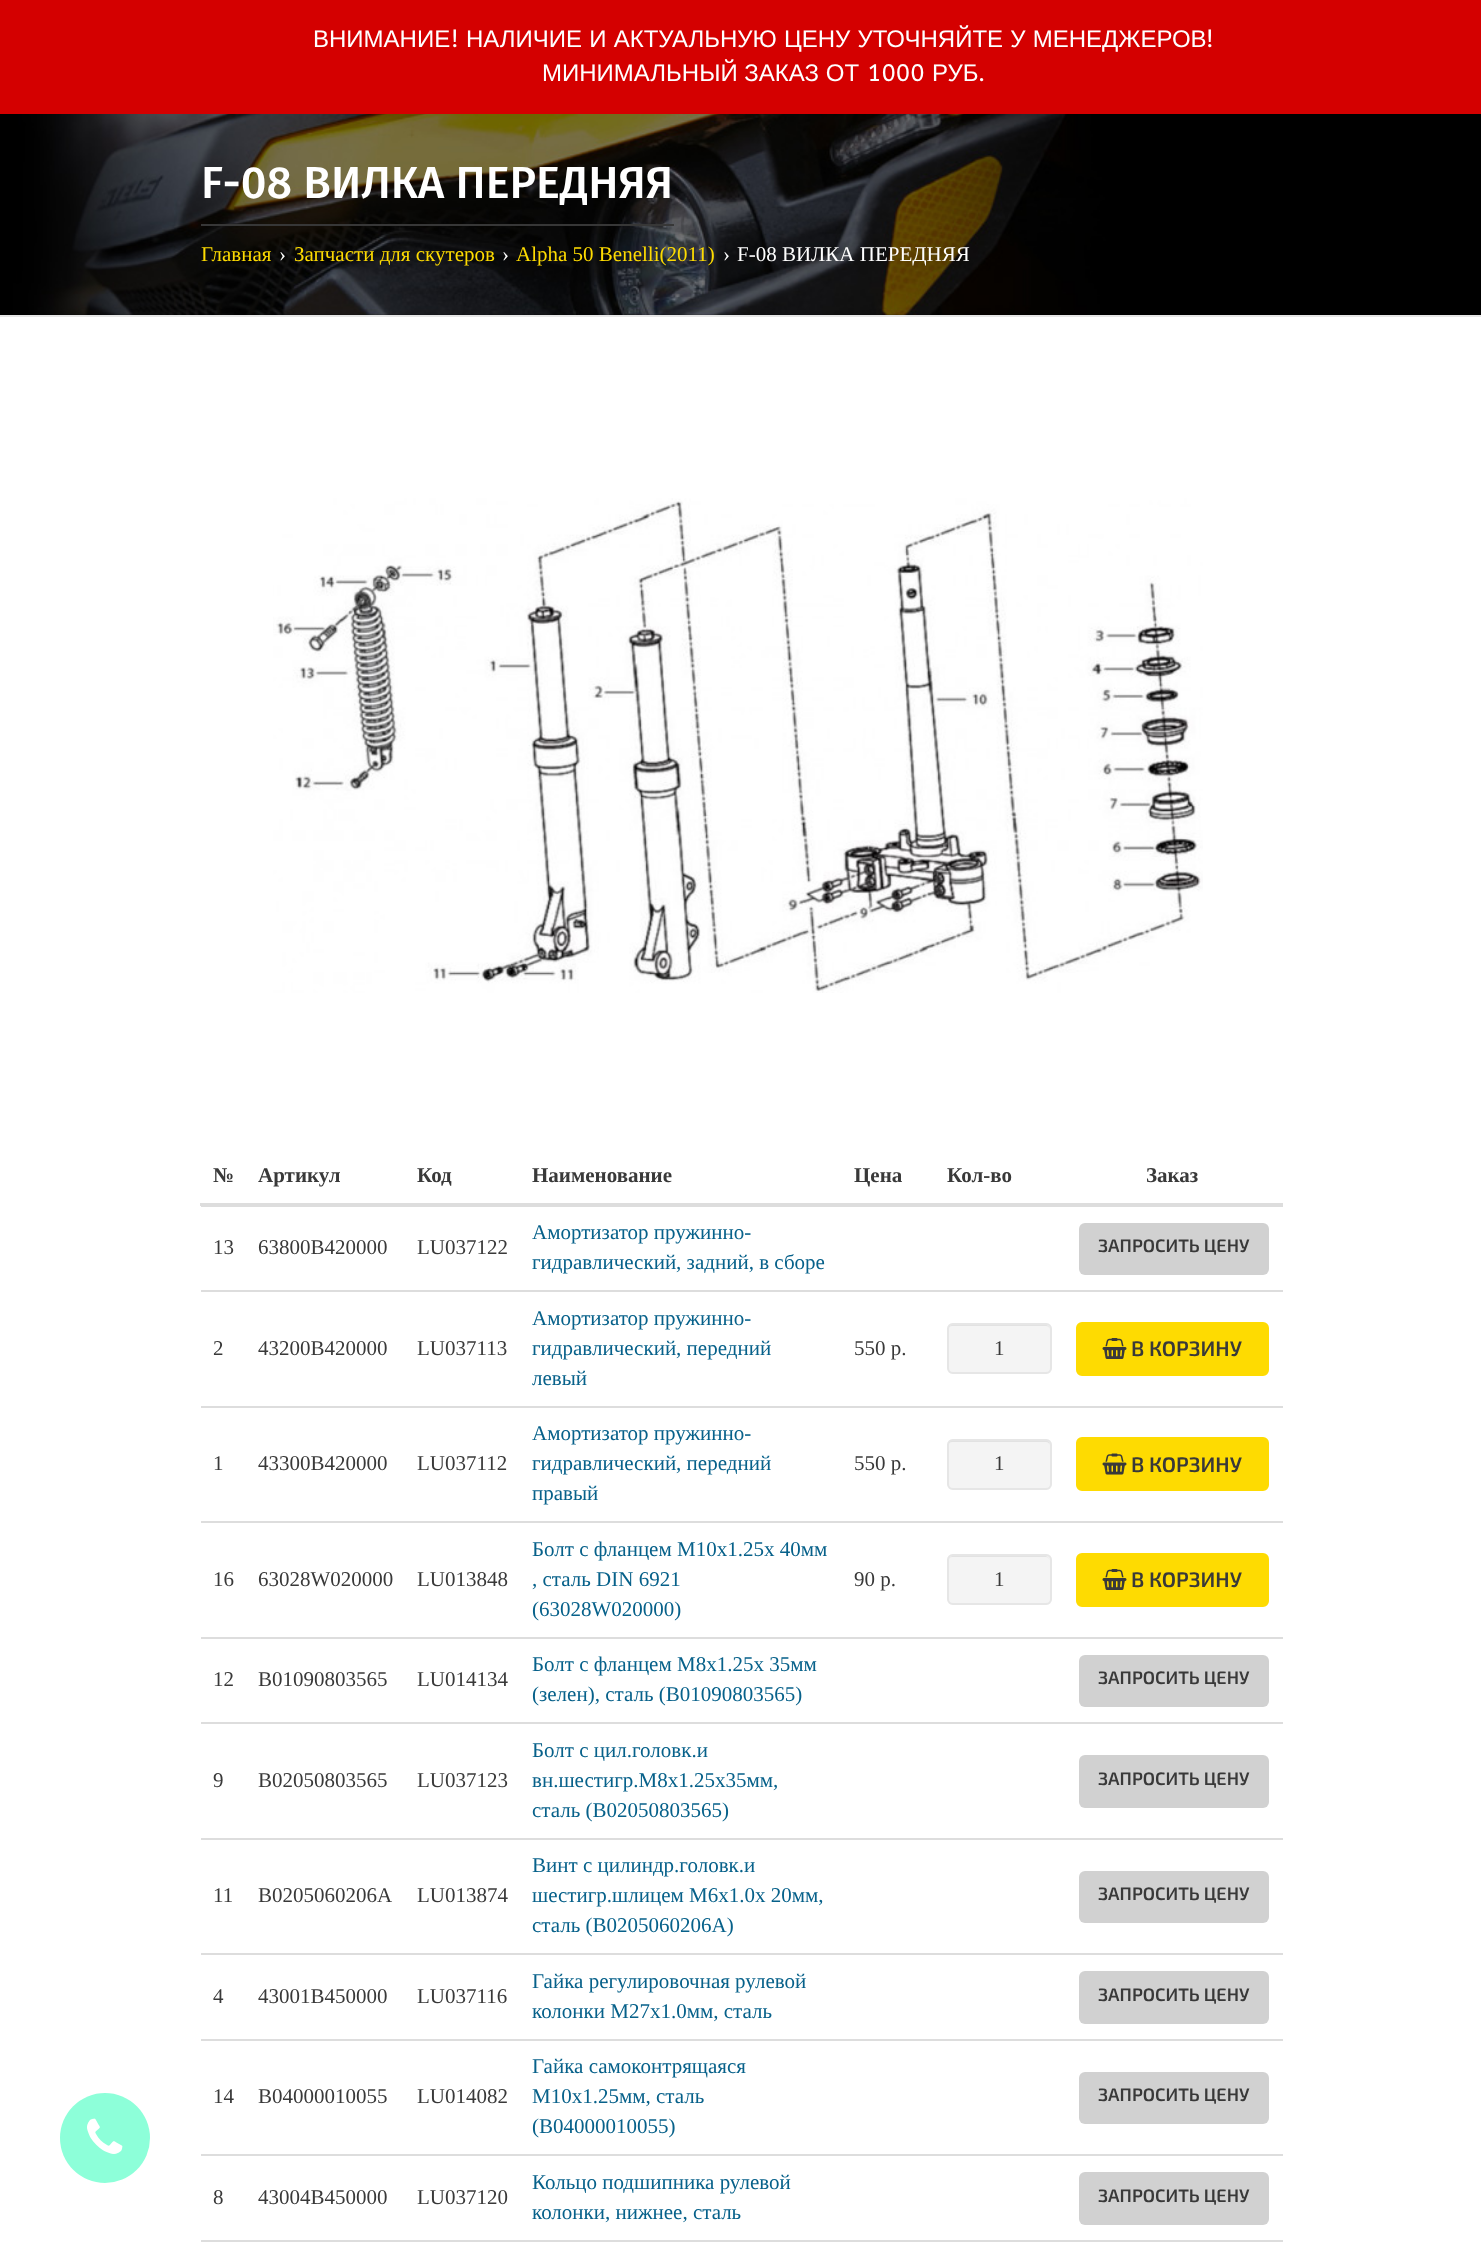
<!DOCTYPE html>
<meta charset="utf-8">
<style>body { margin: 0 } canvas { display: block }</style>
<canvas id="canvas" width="1481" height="2242"></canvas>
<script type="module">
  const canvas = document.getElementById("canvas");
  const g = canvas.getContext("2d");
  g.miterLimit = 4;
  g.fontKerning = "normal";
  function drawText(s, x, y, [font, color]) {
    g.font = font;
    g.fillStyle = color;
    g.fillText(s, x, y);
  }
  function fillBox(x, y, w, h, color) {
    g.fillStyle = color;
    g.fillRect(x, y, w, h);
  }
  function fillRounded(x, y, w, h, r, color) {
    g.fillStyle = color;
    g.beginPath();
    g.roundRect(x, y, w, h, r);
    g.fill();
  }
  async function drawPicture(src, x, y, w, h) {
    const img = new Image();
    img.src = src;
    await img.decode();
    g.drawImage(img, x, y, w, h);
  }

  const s1 = ["24px Liberation Sans", "#FFFFFF"];
  const s2 = ["24px ABeeZee", "#FFFFFF"];
  const s3 = ["500 45px Fira Sans", "#FFFFFF"];
  const s4 = ["21px Liberation Serif", "#FEDB01"];
  const s5 = ["21px Liberation Serif", "#FFFFFF"];
  const s6 = ["bold 21px Liberation Serif", "#393939"];
  const s7 = ["21px Liberation Serif", "#393939"];
  const s8 = ["21px Liberation Serif", "#07618A"];
  const s9 = ["600 18px 'Exo 2'", "#393939"];
  const s10 = ["600 21px 'Exo 2'", "#393939"];

  fillBox(0, 0, 1481, 2242, "#FFFFFF");
  g.fillStyle = "#8DFFD9";
  g.beginPath();
  g.arc(105, 2138, 45, 0, Math.PI * 2);
  g.fill();
  await drawPicture("pic1.png", 87, 2118, 36, 36);
  fillBox(0, 0, 1481, 114, "#D40000");
  drawText("ВНИМАНИЕ", 313, 47, s1);
  drawText("!", 451, 47, s2);
  g.wordSpacing = "0.5px";
  drawText("НАЛИЧИЕ И АКТУАЛЬНУЮ ЦЕНУ УТОЧНЯЙТЕ У МЕНЕДЖЕРОВ", 466, 47, s1);
  g.wordSpacing = "0px";
  drawText("!", 1206, 47, s2);
  drawText("МИНИМАЛЬНЫЙ ЗАКАЗ ОТ", 542, 81, s1);
  drawText("1000", 867, 81, s2);
  drawText("РУБ", 932, 81, s1);
  drawText(".", 978, 81, s2);
  await drawPicture("pic2.png", 0, 114, 1481, 201);
  fillBox(0, 315, 1481, 2, "#E6E6E6");
  fillBox(201, 224, 473, 2, "#373737");
  drawText("F-08 ВИЛКА ПЕРЕДНЯЯ", 201, 198, s3);
  drawText("Главная", 201, 261, s4);
  drawText("›", 279, 261, s5);
  drawText("Запчасти для скутеров", 294, 261, s4);
  drawText("›", 502, 261, s5);
  drawText("Alpha 50 Benelli(2011)", 516, 261, s4);
  drawText("›", 723, 261, s5);
  drawText("F-08 ВИЛКА ПЕРЕДНЯЯ", 737, 261, s5);
  await drawPicture("pic3.png", 273, 498, 930, 495);
  drawText("№", 213, 1182, s6);
  drawText("Артикул", 258, 1182, s6);
  drawText("Код", 417, 1182, s6);
  drawText("Наименование", 532, 1182, s6);
  drawText("Цена", 854, 1182, s6);
  drawText("Кол-во", 947, 1182, s6);
  fillBox(200, 1203, 1083, 3, "#DDDDDD");
  drawText("Заказ", 1146, 1182, s6);
  drawText("13", 213, 1254, s7);
  drawText("63800B420000", 258, 1254, s7);
  drawText("LU037122", 417, 1254, s7);
  drawText("Амортизатор пружинно-", 532, 1239, s8);
  drawText("гидравлический, задний, в сборе", 532, 1269, s8);
  fillBox(201, 1206, 1082, 1, "#DDDDDD");
  fillRounded(1079, 1223, 190, 52, 6, "#D1D1D1");
  drawText("ЗАПРОСИТЬ ЦЕНУ", 1098, 1252, s9);
  drawText("2", 213, 1355, s7);
  drawText("43200B420000", 258, 1355, s7);
  drawText("LU037113", 417, 1355, s7);
  drawText("Амортизатор пружинно-", 532, 1325, s8);
  drawText("гидравлический, передний", 532, 1355, s8);
  drawText("левый", 532, 1385, s8);
  drawText("550 р.", 854, 1355, s7);
  fillRounded(947, 1323, 105, 51, 6, "#F4F4F4");
  g.fillStyle = "#E2E2E2";
  g.beginPath();
  g.moveTo(952, 1326);
  g.lineTo(1046, 1326);
  g.bezierCurveTo(1048, 1326, 1050, 1328, 1050, 1330);
  g.bezierCurveTo(1050, 1327, 1048, 1325, 1045, 1325);
  g.lineTo(953, 1325);
  g.bezierCurveTo(950, 1325, 948, 1327, 948, 1330);
  g.bezierCurveTo(948, 1328, 950, 1326, 952, 1326);
  g.closePath();
  g.fill();
  g.beginPath();
  g.roundRect(948, 1324, 103, 49, 5);
  g.strokeStyle = "#E6E6E6";
  g.lineWidth = 2;
  g.stroke();
  drawText("1", 994, 1355, s7);
  fillBox(201, 1290, 1082, 2, "#DDDDDD");
  g.fillStyle = "#FEDB01";
  g.beginPath();
  g.roundRect(1077.5, 1323.5, 190, 51, 4.5);
  g.fill();
  g.strokeStyle = "#FEDB01";
  g.lineWidth = 3;
  g.stroke();
  await drawPicture("pic4.png", 1102, 1338, 25, 21);
  drawText("В КОРЗИНУ", 1131, 1356, s10);
  drawText("1", 213, 1470, s7);
  drawText("43300B420000", 258, 1470, s7);
  drawText("LU037112", 417, 1470, s7);
  drawText("Амортизатор пружинно-", 532, 1440, s8);
  drawText("гидравлический, передний", 532, 1470, s8);
  drawText("правый", 532, 1500, s8);
  drawText("550 р.", 854, 1470, s7);
  fillRounded(947, 1439, 105, 51, 6, "#F4F4F4");
  g.fillStyle = "#E2E2E2";
  g.beginPath();
  g.moveTo(952, 1442);
  g.lineTo(1046, 1442);
  g.bezierCurveTo(1048, 1442, 1050, 1444, 1050, 1446);
  g.bezierCurveTo(1050, 1436, 1035, 1440, 1030, 1440);
  g.lineTo(968, 1440);
  g.bezierCurveTo(963, 1440, 948, 1436, 948, 1446);
  g.bezierCurveTo(948, 1444, 950, 1442, 952, 1442);
  g.closePath();
  g.fill();
  g.beginPath();
  g.roundRect(948, 1440, 103, 49, 5);
  g.strokeStyle = "#E6E6E6";
  g.lineWidth = 2;
  g.stroke();
  drawText("1", 994, 1470, s7);
  fillBox(201, 1406, 1082, 2, "#DDDDDD");
  g.fillStyle = "#FEDB01";
  g.beginPath();
  g.roundRect(1077.5, 1438.5, 190, 51, 4.5);
  g.fill();
  g.strokeStyle = "#FEDB01";
  g.lineWidth = 3;
  g.stroke();
  await drawPicture("pic5.png", 1102, 1453, 25, 22);
  drawText("В КОРЗИНУ", 1131, 1472, s10);
  drawText("16", 213, 1586, s7);
  drawText("63028W020000", 258, 1586, s7);
  drawText("LU013848", 417, 1586, s7);
  drawText("Болт с фланцем М10х1.25х 40мм", 532, 1556, s8);
  drawText(", сталь DIN 6921", 532, 1586, s8);
  drawText("(63028W020000)", 532, 1616, s8);
  drawText("90 р.", 854, 1586, s7);
  fillRounded(947, 1554, 105, 51, 6, "#F4F4F4");
  g.fillStyle = "#E2E2E2";
  g.beginPath();
  g.moveTo(952, 1557);
  g.lineTo(1046, 1557);
  g.bezierCurveTo(1048, 1557, 1050, 1559, 1050, 1562);
  g.bezierCurveTo(1050, 1552, 1035, 1556, 1030, 1556);
  g.lineTo(968, 1556);
  g.bezierCurveTo(963, 1556, 948, 1552, 948, 1562);
  g.bezierCurveTo(948, 1559, 950, 1557, 952, 1557);
  g.closePath();
  g.fill();
  g.beginPath();
  g.roundRect(948, 1555, 103, 49, 5);
  g.strokeStyle = "#E6E6E6";
  g.lineWidth = 2;
  g.stroke();
  drawText("1", 994, 1586, s7);
  fillBox(201, 1521, 1082, 2, "#DDDDDD");
  g.fillStyle = "#FEDB01";
  g.beginPath();
  g.roundRect(1077.5, 1554.5, 190, 51, 4.5);
  g.fill();
  g.strokeStyle = "#FEDB01";
  g.lineWidth = 3;
  g.stroke();
  await drawPicture("pic4.png", 1102, 1569, 25, 21);
  drawText("В КОРЗИНУ", 1131, 1587, s10);
  drawText("12", 213, 1686, s7);
  drawText("B01090803565", 258, 1686, s7);
  drawText("LU014134", 417, 1686, s7);
  drawText("Болт с фланцем М8х1.25х 35мм", 532, 1671, s8);
  drawText("(зелен), сталь (B01090803565)", 532, 1701, s8);
  fillBox(201, 1637, 1082, 2, "#DDDDDD");
  fillRounded(1079, 1655, 190, 52, 6, "#D1D1D1");
  drawText("ЗАПРОСИТЬ ЦЕНУ", 1098, 1684, s9);
  drawText("9", 213, 1787, s7);
  drawText("B02050803565", 258, 1787, s7);
  drawText("LU037123", 417, 1787, s7);
  drawText("Болт с цил.головк.и", 532, 1757, s8);
  drawText("вн.шестигр.M8х1.25х35мм,", 532, 1787, s8);
  drawText("сталь (B02050803565)", 532, 1817, s8);
  fillBox(201, 1722, 1082, 2, "#DDDDDD");
  fillRounded(1079, 1755, 190, 53, 6, "#D1D1D1");
  drawText("ЗАПРОСИТЬ ЦЕНУ", 1098, 1785, s9);
  drawText("11", 213, 1902, s7);
  drawText("B0205060206A", 258, 1902, s7);
  drawText("LU013874", 417, 1902, s7);
  drawText("Винт с цилиндр.головк.и", 532, 1872, s8);
  drawText("шестигр.шлицем M6х1.0х 20мм,", 532, 1902, s8);
  drawText("сталь (B0205060206A)", 532, 1932, s8);
  fillBox(201, 1838, 1082, 2, "#DDDDDD");
  fillRounded(1079, 1871, 190, 52, 6, "#D1D1D1");
  drawText("ЗАПРОСИТЬ ЦЕНУ", 1098, 1900, s9);
  drawText("4", 213, 2003, s7);
  drawText("43001B450000", 258, 2003, s7);
  drawText("LU037116", 417, 2003, s7);
  drawText("Гайка регулировочная рулевой", 532, 1988, s8);
  drawText("колонки М27x1.0мм, сталь", 532, 2018, s8);
  fillBox(201, 1953, 1082, 2, "#DDDDDD");
  fillRounded(1079, 1971, 190, 53, 6, "#D1D1D1");
  drawText("ЗАПРОСИТЬ ЦЕНУ", 1098, 2001, s9);
  drawText("14", 213, 2103, s7);
  drawText("B04000010055", 258, 2103, s7);
  drawText("LU014082", 417, 2103, s7);
  drawText("Гайка самоконтрящаяся", 532, 2073, s8);
  drawText("M10х1.25мм, сталь", 532, 2103, s8);
  drawText("(B04000010055)", 532, 2133, s8);
  fillBox(201, 2039, 1082, 2, "#DDDDDD");
  fillRounded(1079, 2072, 190, 52, 6, "#D1D1D1");
  drawText("ЗАПРОСИТЬ ЦЕНУ", 1098, 2101, s9);
  drawText("8", 213, 2204, s7);
  drawText("43004B450000", 258, 2204, s7);
  drawText("LU037120", 417, 2204, s7);
  drawText("Кольцо подшипника рулевой", 532, 2189, s8);
  drawText("колонки, нижнее, сталь", 532, 2219, s8);
  fillBox(201, 2154, 1082, 2, "#DDDDDD");
  fillRounded(1079, 2172, 190, 53, 6, "#D1D1D1");
  drawText("ЗАПРОСИТЬ ЦЕНУ", 1098, 2202, s9);
  fillBox(201, 2240, 1082, 2, "#DDDDDD");
</script>
